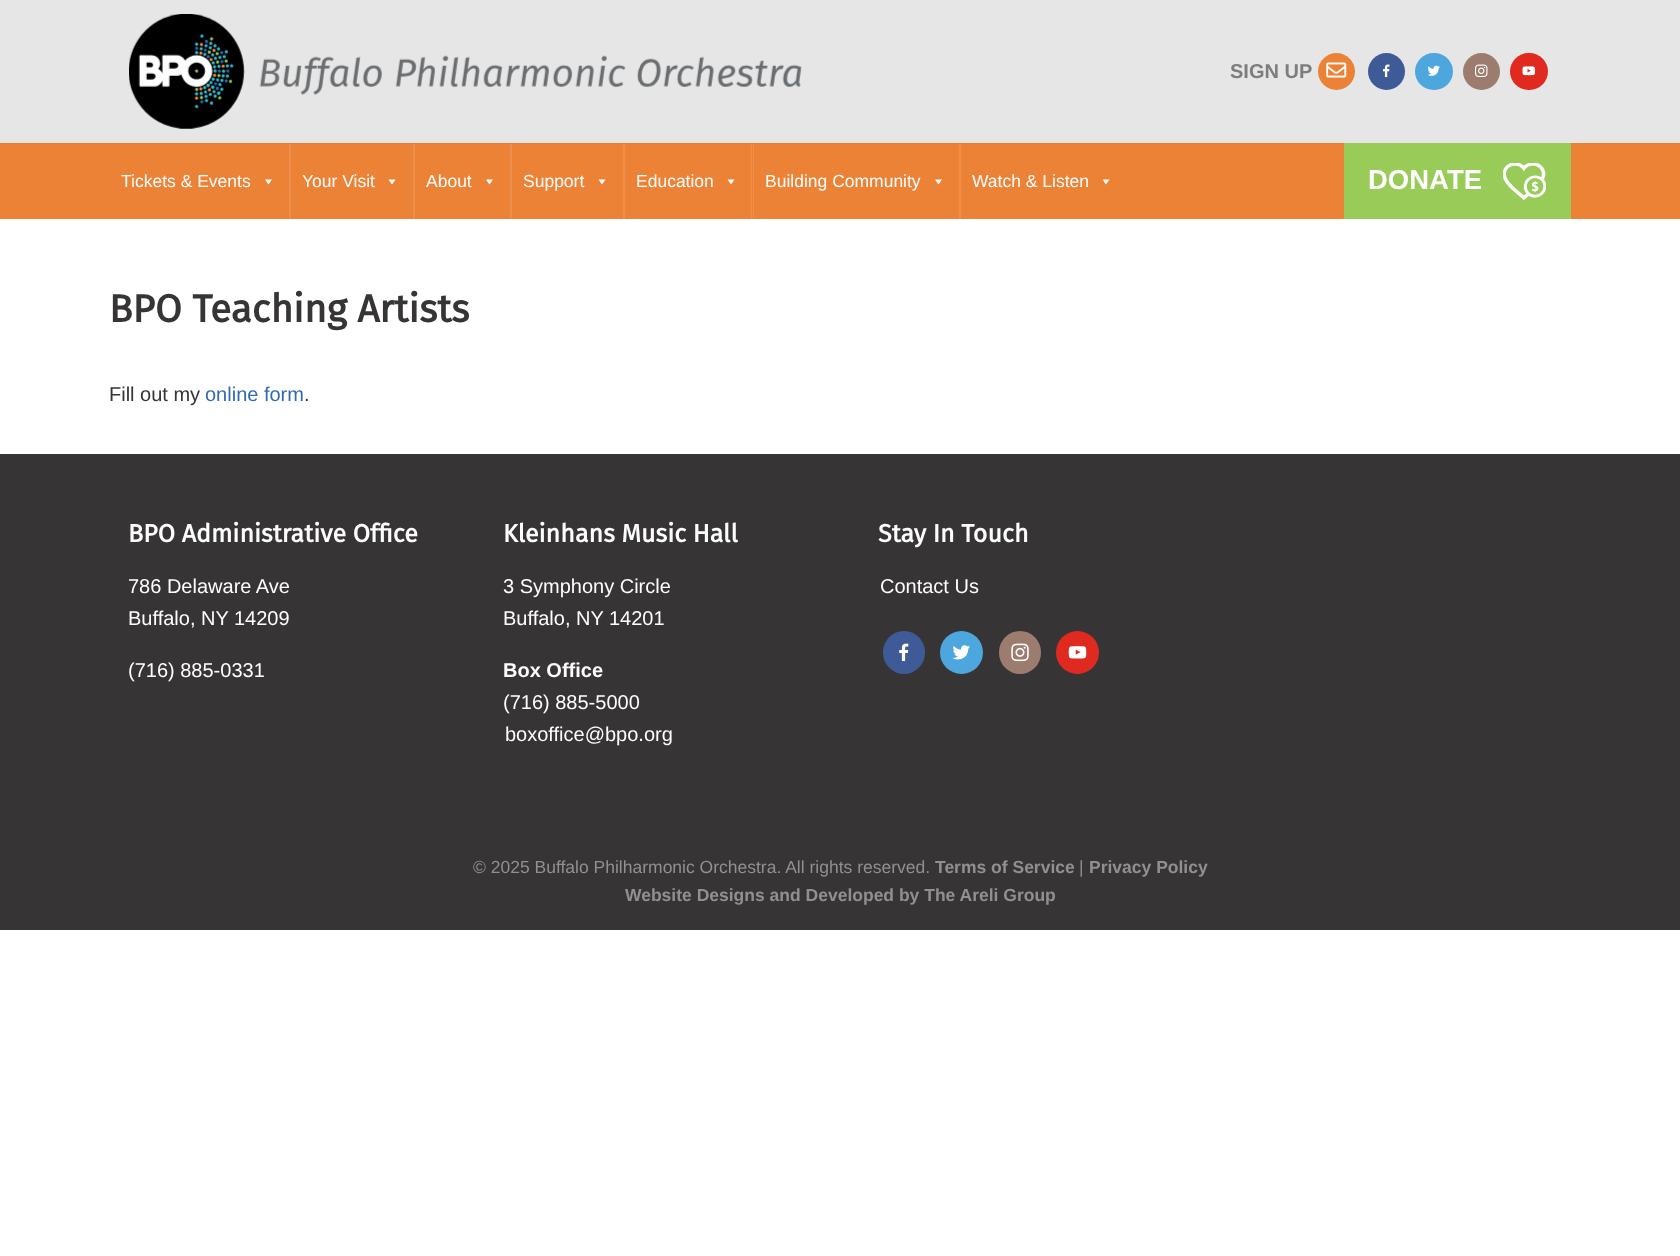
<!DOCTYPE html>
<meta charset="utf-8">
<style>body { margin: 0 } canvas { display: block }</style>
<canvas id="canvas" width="1680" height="1256"></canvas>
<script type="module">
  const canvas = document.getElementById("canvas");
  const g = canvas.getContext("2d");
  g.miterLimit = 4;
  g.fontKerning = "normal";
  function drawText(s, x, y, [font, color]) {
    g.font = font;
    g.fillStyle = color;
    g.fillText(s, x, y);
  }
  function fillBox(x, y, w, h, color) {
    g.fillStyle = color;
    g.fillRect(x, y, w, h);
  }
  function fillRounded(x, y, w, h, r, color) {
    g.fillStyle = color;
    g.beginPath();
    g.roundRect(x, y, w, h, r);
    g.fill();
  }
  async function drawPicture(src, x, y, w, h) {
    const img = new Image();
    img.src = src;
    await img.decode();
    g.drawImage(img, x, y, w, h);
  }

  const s1 = ["bold 20px Liberation Sans", "#7D7D7D"];
  const s2 = ["17.5px Liberation Sans", "#FEFEFE"];
  const s3 = ["bold 27.5px Liberation Sans", "#FEFEFE"];
  const s4 = ["bold 38.75px Fira Sans", "#373435"];
  const s5 = ["20px Liberation Sans", "#373435"];
  const s6 = ["20px Liberation Sans", "#326AB2"];
  const s7 = ["bold 25px Fira Sans", "#FEFEFE"];
  const s8 = ["20px Liberation Sans", "#FEFEFE"];
  const s9 = ["bold 20px Liberation Sans", "#FEFEFE"];
  const s10 = ["17.5px Liberation Sans", "#8F908F"];
  const s11 = ["bold 17.5px Liberation Sans", "#8F908F"];

  fillBox(0, 0, 1680, 1256, "#FFFFFF");
  fillBox(0, 0, 1680, 143, "#E6E6E6");
  await drawPicture("pic1.png", 129, 14, 673, 115);
  drawText("SIGN UP", 1230, 78, s1);
  g.fillStyle = "#EB8236";
  g.beginPath();
  g.arc(1336.5, 71.5, 18.5, 0, Math.PI * 2);
  g.fill();
  await drawPicture("pic2.png", 1326, 62, 21, 16);
  g.fillStyle = "#3E5B98";
  g.beginPath();
  g.arc(1386.5, 71.5, 18.5, 0, Math.PI * 2);
  g.fill();
  await drawPicture("pic3.png", 1383, 64, 7, 13);
  fillRounded(1415, 53, 38, 37, 18.5, "#4DA7DE");
  await drawPicture("pic4.png", 1427, 65, 13, 11);
  g.fillStyle = "#9C7C6E";
  g.beginPath();
  g.arc(1481.5, 71.5, 18.5, 0, Math.PI * 2);
  g.fill();
  await drawPicture("pic5.png", 1475, 64, 13, 13);
  fillRounded(1510, 53, 38, 37, 18.5, "#E02A20");
  await drawPicture("pic6.png", 1522, 66, 13, 10);
  fillBox(0, 143, 1680, 76, "#EB8236");
  drawText("Tickets & Events", 121, 187, s2);
  g.fillStyle = "#FFFFFF";
  g.beginPath();
  g.moveTo(272, 179.5);
  g.lineTo(268.5, 184.5);
  g.lineTo(265, 179.5);
  g.closePath();
  g.fill();
  fillBox(289, 144, 2, 75, "#ED8F4A");
  drawText("Your Visit", 302, 187, s2);
  g.fillStyle = "#FFFFFF";
  g.beginPath();
  g.moveTo(395.5, 179.5);
  g.lineTo(392, 184.5);
  g.lineTo(388.5, 179.5);
  g.closePath();
  g.fill();
  fillBox(413, 144, 2, 75, "#ED8F4A");
  drawText("About", 426, 187, s2);
  g.fillStyle = "#FFFFFF";
  g.beginPath();
  g.moveTo(493, 179.5);
  g.lineTo(489.5, 184.5);
  g.lineTo(486, 179.5);
  g.closePath();
  g.fill();
  fillBox(510, 144, 2, 75, "#ED8F4A");
  drawText("Support", 523, 187, s2);
  g.fillStyle = "#FFFFFF";
  g.beginPath();
  g.moveTo(605.5, 179.5);
  g.lineTo(602, 184.5);
  g.lineTo(598.5, 179.5);
  g.closePath();
  g.fill();
  fillBox(623, 144, 2, 75, "#ED8F4A");
  drawText("Education", 636, 187, s2);
  g.fillStyle = "#FFFFFF";
  g.beginPath();
  g.moveTo(734.5, 179.5);
  g.lineTo(731, 184.5);
  g.lineTo(727.5, 179.5);
  g.closePath();
  g.fill();
  fillBox(753, 144, 1, 75, "#ED8F4A");
  fillBox(751, 144, 1, 75, "#ED8F4A");
  drawText("Building Community", 765, 187, s2);
  g.fillStyle = "#FFFFFF";
  g.beginPath();
  g.moveTo(942, 179.5);
  g.lineTo(938.5, 184.5);
  g.lineTo(935, 179.5);
  g.closePath();
  g.fill();
  fillBox(959, 144, 2, 75, "#ED8F4A");
  drawText("Watch & Listen", 972, 187, s2);
  g.fillStyle = "#FFFFFF";
  g.beginPath();
  g.moveTo(1109.5, 179.5);
  g.lineTo(1106, 184.5);
  g.lineTo(1102.5, 179.5);
  g.closePath();
  g.fill();
  fillBox(1344, 143, 227, 76, "#98CB57");
  drawText("DONATE", 1368, 189, s3);
  await drawPicture("pic7.png", 1503, 163, 43, 37);
  drawText("BPO Teaching Artists", 109, 322, s4);
  drawText("Fill out my", 109, 401, s5);
  drawText("online form", 205, 401, s6);
  drawText(".", 304, 401, s5);
  fillBox(0, 454, 1680, 476, "#373435");
  drawText("BPO Administrative Office", 128, 542, s7);
  drawText("786 Delaware Ave", 128, 593, s8);
  drawText("Buffalo, NY 14209", 128, 625, s8);
  drawText("(716) 885-0331", 128, 677, s8);
  drawText("Kleinhans Music Hall", 503, 542, s7);
  drawText("3 Symphony Circle", 503, 593, s8);
  drawText("Buffalo, NY 14201", 503, 625, s8);
  drawText("Box Office", 503, 677, s9);
  drawText("(716) 885-5000", 503, 709, s8);
  drawText("boxoffice@bpo.org", 505, 741, s8);
  drawText("Stay In Touch", 878, 542, s7);
  drawText("Contact Us", 880, 593, s8);
  fillRounded(883, 631, 42, 43, 21, "#3E5B98");
  await drawPicture("pic8.png", 899, 643, 10, 19);
  g.fillStyle = "#4DA7DE";
  g.beginPath();
  g.arc(961.5, 652.5, 21.5, 0, Math.PI * 2);
  g.fill();
  await drawPicture("pic9.png", 952, 645, 18, 15);
  fillRounded(999, 631, 42, 43, 21, "#9C7C6E");
  await drawPicture("pic10.png", 1011, 643, 18, 19);
  g.fillStyle = "#E02A20";
  g.beginPath();
  g.arc(1077.5, 652.5, 21.5, 0, Math.PI * 2);
  g.fill();
  await drawPicture("pic11.png", 1068, 646, 19, 13);
  drawText("© 2025 Buffalo Philharmonic Orchestra. All rights reserved.", 473, 873, s10);
  drawText("Terms of Service", 935, 873, s11);
  drawText("|", 1079, 873, s10);
  drawText("Privacy Policy", 1089, 873, s11);
  drawText("Website Designs and Developed by The Areli Group", 625, 901, s11);
</script>
